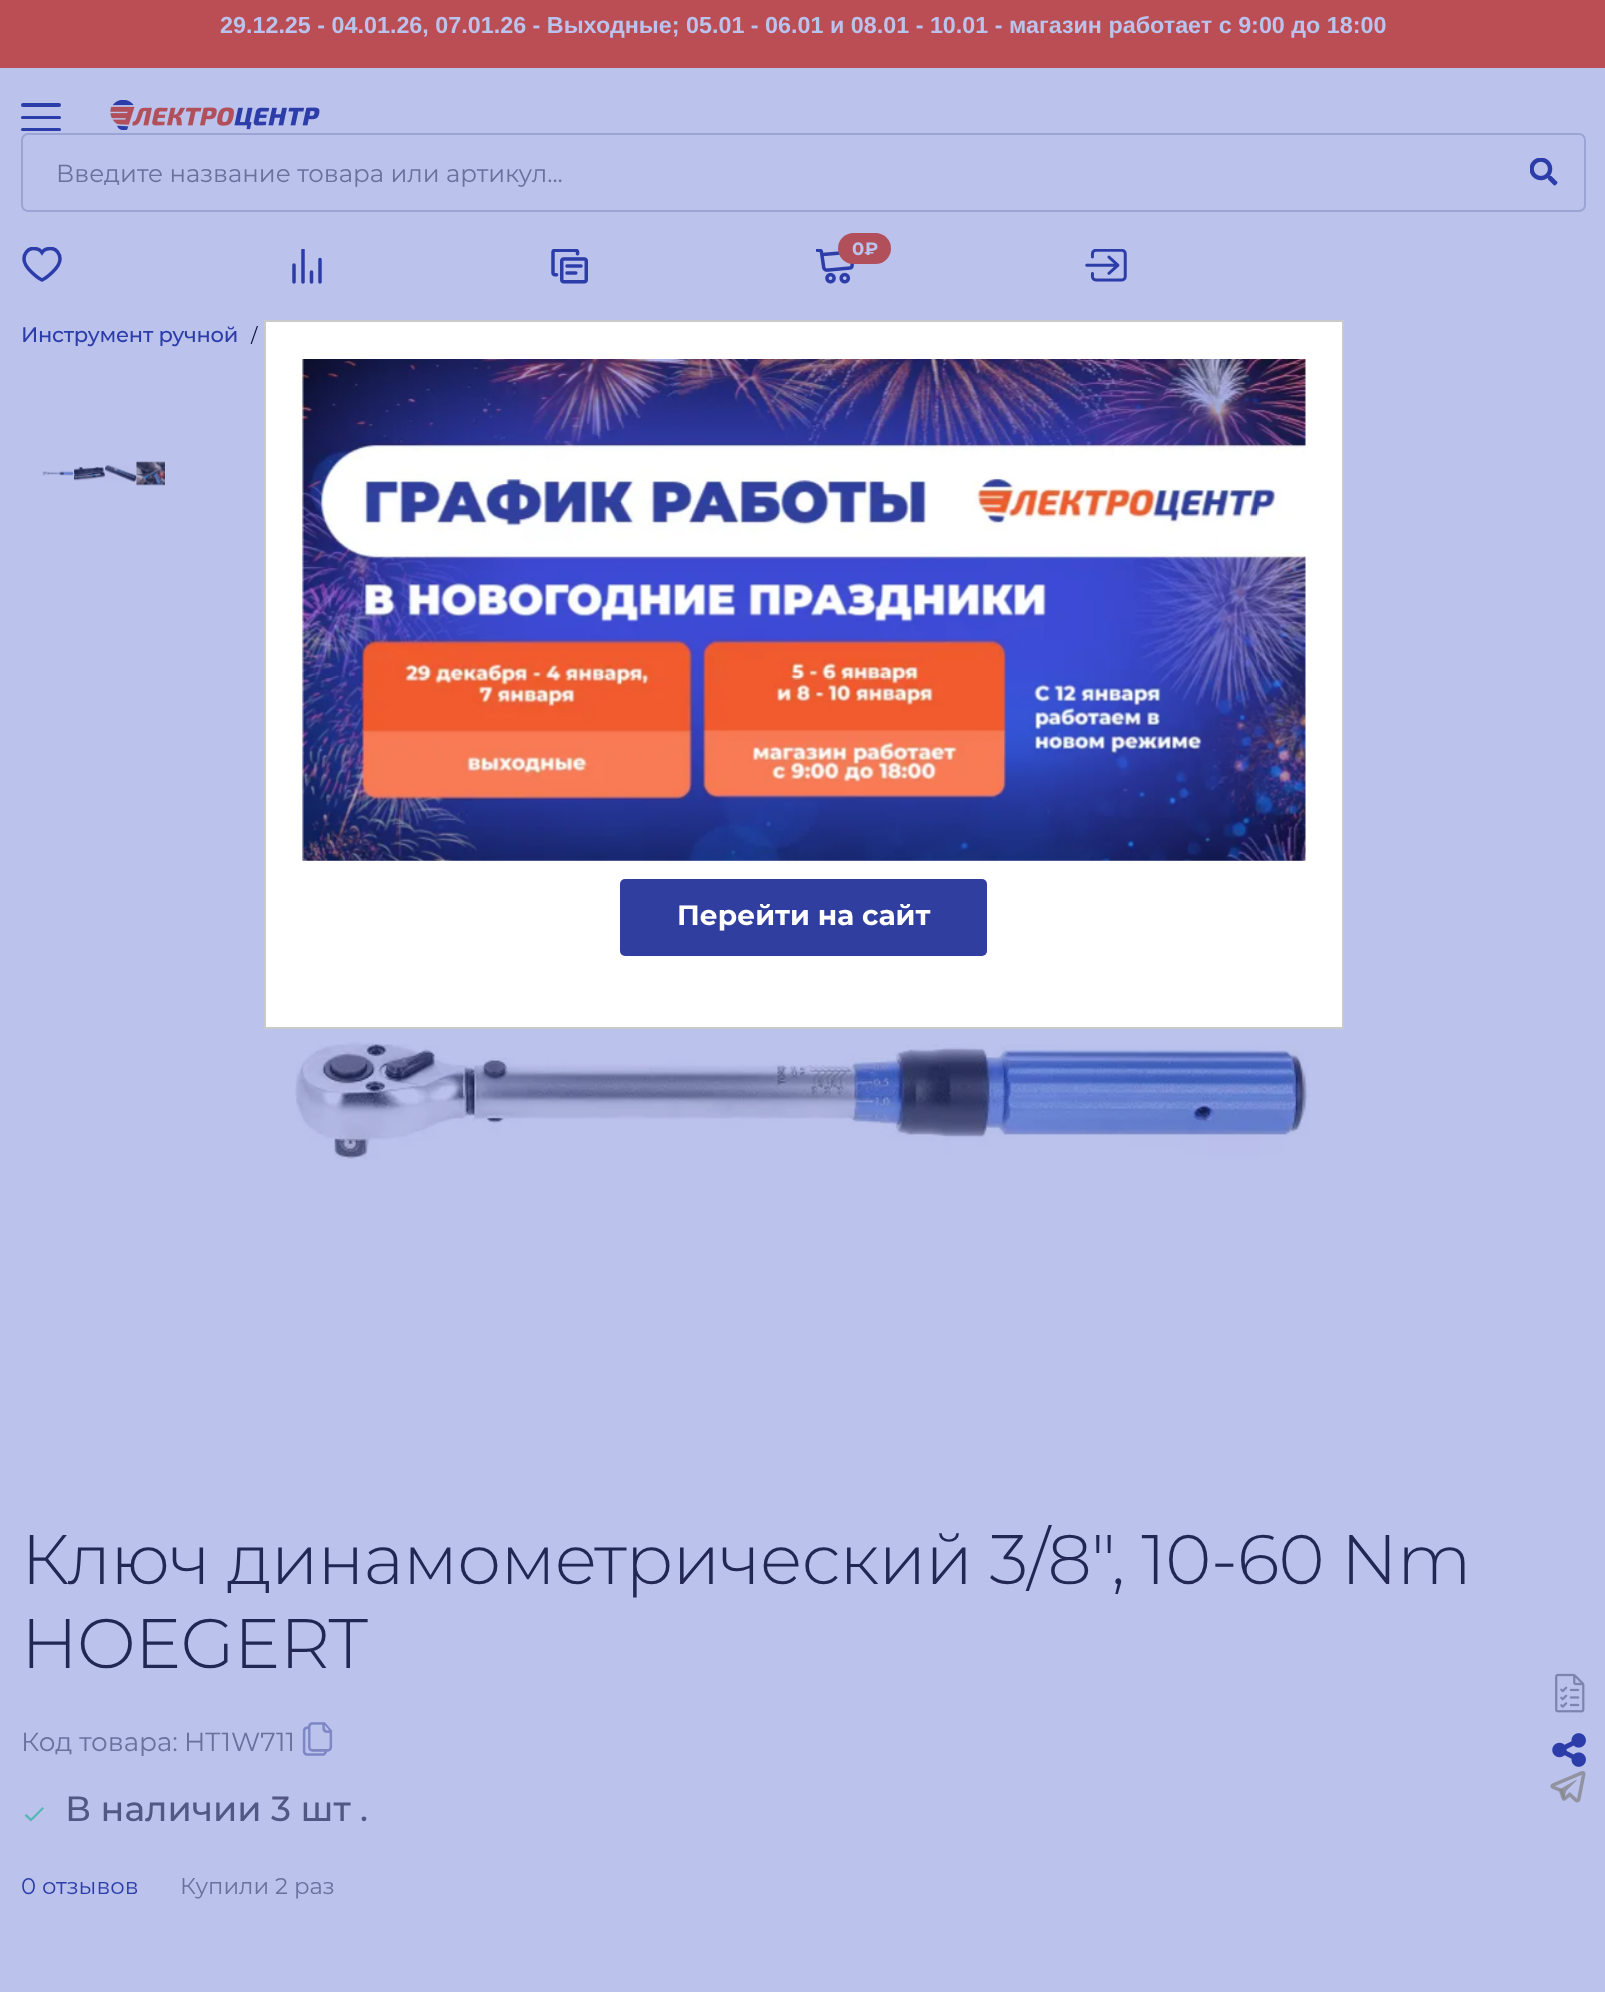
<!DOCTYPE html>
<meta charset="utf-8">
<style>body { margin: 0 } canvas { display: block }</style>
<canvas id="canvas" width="1605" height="1992"></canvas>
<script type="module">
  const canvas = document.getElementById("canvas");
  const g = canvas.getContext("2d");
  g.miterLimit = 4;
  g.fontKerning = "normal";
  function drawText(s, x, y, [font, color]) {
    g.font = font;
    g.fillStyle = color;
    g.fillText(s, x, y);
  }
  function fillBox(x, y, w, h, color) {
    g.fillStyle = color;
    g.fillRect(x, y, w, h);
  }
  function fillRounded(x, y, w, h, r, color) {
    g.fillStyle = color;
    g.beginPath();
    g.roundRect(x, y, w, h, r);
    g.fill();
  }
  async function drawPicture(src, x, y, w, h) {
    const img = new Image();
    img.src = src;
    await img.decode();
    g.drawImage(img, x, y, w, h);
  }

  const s1 = ["bold 23.33px Liberation Sans", "#BBC2EC"];
  const s2 = ["24.5px Montserrat", "#6A719B"];
  const s3 = ["bold 18px Montserrat", "#BBC2EC"];
  const s4 = ["500 21px Montserrat", "#2C3DAA"];
  const s5 = ["19px Montserrat", "#0B123C"];
  const s6 = ["300 70px Montserrat", "#222853"];
  const s7 = ["26.25px Montserrat", "#6A719B"];
  const s8 = ["500 35px Montserrat", "#525883"];
  const s9 = ["22.75px Montserrat", "#2C3DAA"];
  const s10 = ["22.75px Montserrat", "#6A719B"];
  const s11 = ["bold 28px Montserrat", "#FFFFFF"];

  fillBox(0, 0, 1605, 1992, "#BBC2EC");
  fillBox(0, 0, 1605, 68, "#BB4D54");
  drawText("29.12.25 - 04.01.26, 07.01.26 - Выходные; 05.01 - 06.01 и 08.01 - 10.01 - магазин работает с 9:00 до 18:00", 220, 33, s1);
  fillRounded(21, 103, 40, 4, 2, "#2C3DAA");
  fillRounded(21, 116, 40, 3, 1.5, "#2C3DAA");
  fillRounded(21, 128, 40, 3, 1.5, "#2C3DAA");
  await drawPicture("pic1.png", 110, 100, 210, 30);
  g.beginPath();
  g.roundRect(22, 134, 1563, 77, 6);
  g.strokeStyle = "#9BA5D3";
  g.lineWidth = 2;
  g.stroke();
  drawText("Введите название товара или артикул...", 56, 182, s2);
  await drawPicture("pic2.png", 1530, 158, 28, 28);
  g.save();
  g.beginPath();
  g.rect(21, 247, 42, 37);
  g.clip();
  g.beginPath();
  g.moveTo(33, 248.5);
  g.bezierCurveTo(39.5, 248.5, 42, 252.5, 42, 252.5);
  g.bezierCurveTo(42, 252.5, 44.5, 248.5, 51, 248.5);
  g.bezierCurveTo(56.5, 248.5, 60, 254, 60, 259);
  g.bezierCurveTo(60, 268, 45.5, 278.5, 42, 280);
  g.bezierCurveTo(38.5, 278.5, 24, 268, 24, 259);
  g.bezierCurveTo(24, 254, 27.5, 248.5, 33, 248.5);
  g.closePath();
  g.strokeStyle = "#2C3DAA";
  g.lineWidth = 3.5;
  g.stroke();
  g.restore();
  g.save();
  g.beginPath();
  g.rect(292, 249, 30, 35);
  g.clip();
  g.beginPath();
  g.moveTo(294, 265);
  g.lineTo(294, 282);
  g.moveTo(303, 250);
  g.lineTo(303, 282);
  g.moveTo(311.5, 272);
  g.lineTo(311.5, 282);
  g.moveTo(320, 259.5);
  g.lineTo(320, 282);
  g.strokeStyle = "#2C3DAA";
  g.lineWidth = 3.5;
  g.lineCap = "round";
  g.lineJoin = "round";
  g.stroke();
  g.restore();
  await drawPicture("pic3.png", 551, 249, 37, 35);
  await drawPicture("pic4.png", 816, 249, 38, 35);
  fillRounded(838, 233, 53, 31, 15.5, "#B1505B");
  drawText("0₽", 852, 255, s3);
  await drawPicture("pic5.png", 1085, 249, 42, 33);
  g.letterSpacing = "-0.25px";
  drawText("Инструмент ручной", 21, 342, s4);
  g.letterSpacing = "0px";
  drawText("/", 251, 342, s5);
  await drawPicture("pic6.png", 42, 471, 32, 5);
  await drawPicture("pic7.png", 74, 467, 31, 14);
  await drawPicture("pic8.png", 105, 464, 32, 18);
  await drawPicture("pic9.png", 136, 461, 29, 25);
  await drawPicture("pic10.png", 295, 1042, 1015, 118);
  g.letterSpacing = "-0.9px";
  drawText("Ключ динамометрический 3/8\", 10-60 Nm", 21, 1584, s6);
  drawText("HOEGERT", 21, 1668, s6);
  g.letterSpacing = "0px";
  drawText("Код товара:", 21, 1751, s7);
  drawText("HT1W711", 184, 1751, s7);
  await drawPicture("pic11.png", 302, 1722, 31, 34);
  g.fillStyle = "#54B7B4";
  g.beginPath();
  g.moveTo(31, 1818.5);
  g.lineTo(26.5, 1814);
  g.lineTo(24.5, 1815.5);
  g.lineTo(31, 1821.5);
  g.lineTo(44, 1808.5);
  g.lineTo(42.5, 1807);
  g.closePath();
  g.fill();
  drawText("В наличии 3 шт .", 65, 1821, s8);
  await drawPicture("pic12.png", 1552, 1733, 34, 34);
  drawText("0 отзывов", 21, 1894, s9);
  drawText("Купили 2 раз", 180, 1894, s10);
  await drawPicture("pic13.png", 1555, 1673, 30, 40);
  g.fillStyle = "#FFFFFF";
  g.beginPath();
  g.rect(265, 321, 1078, 707);
  g.fill();
  g.strokeStyle = "#CACACA";
  g.stroke();
  await drawPicture("pic14.png", 302, 359, 1004, 502);
  fillRounded(620, 879, 367, 77, 5, "#303F9F");
  drawText("Перейти на сайт", 677, 925, s11);
  await drawPicture("pic15.png", 1550, 1771, 36, 32);
</script>
